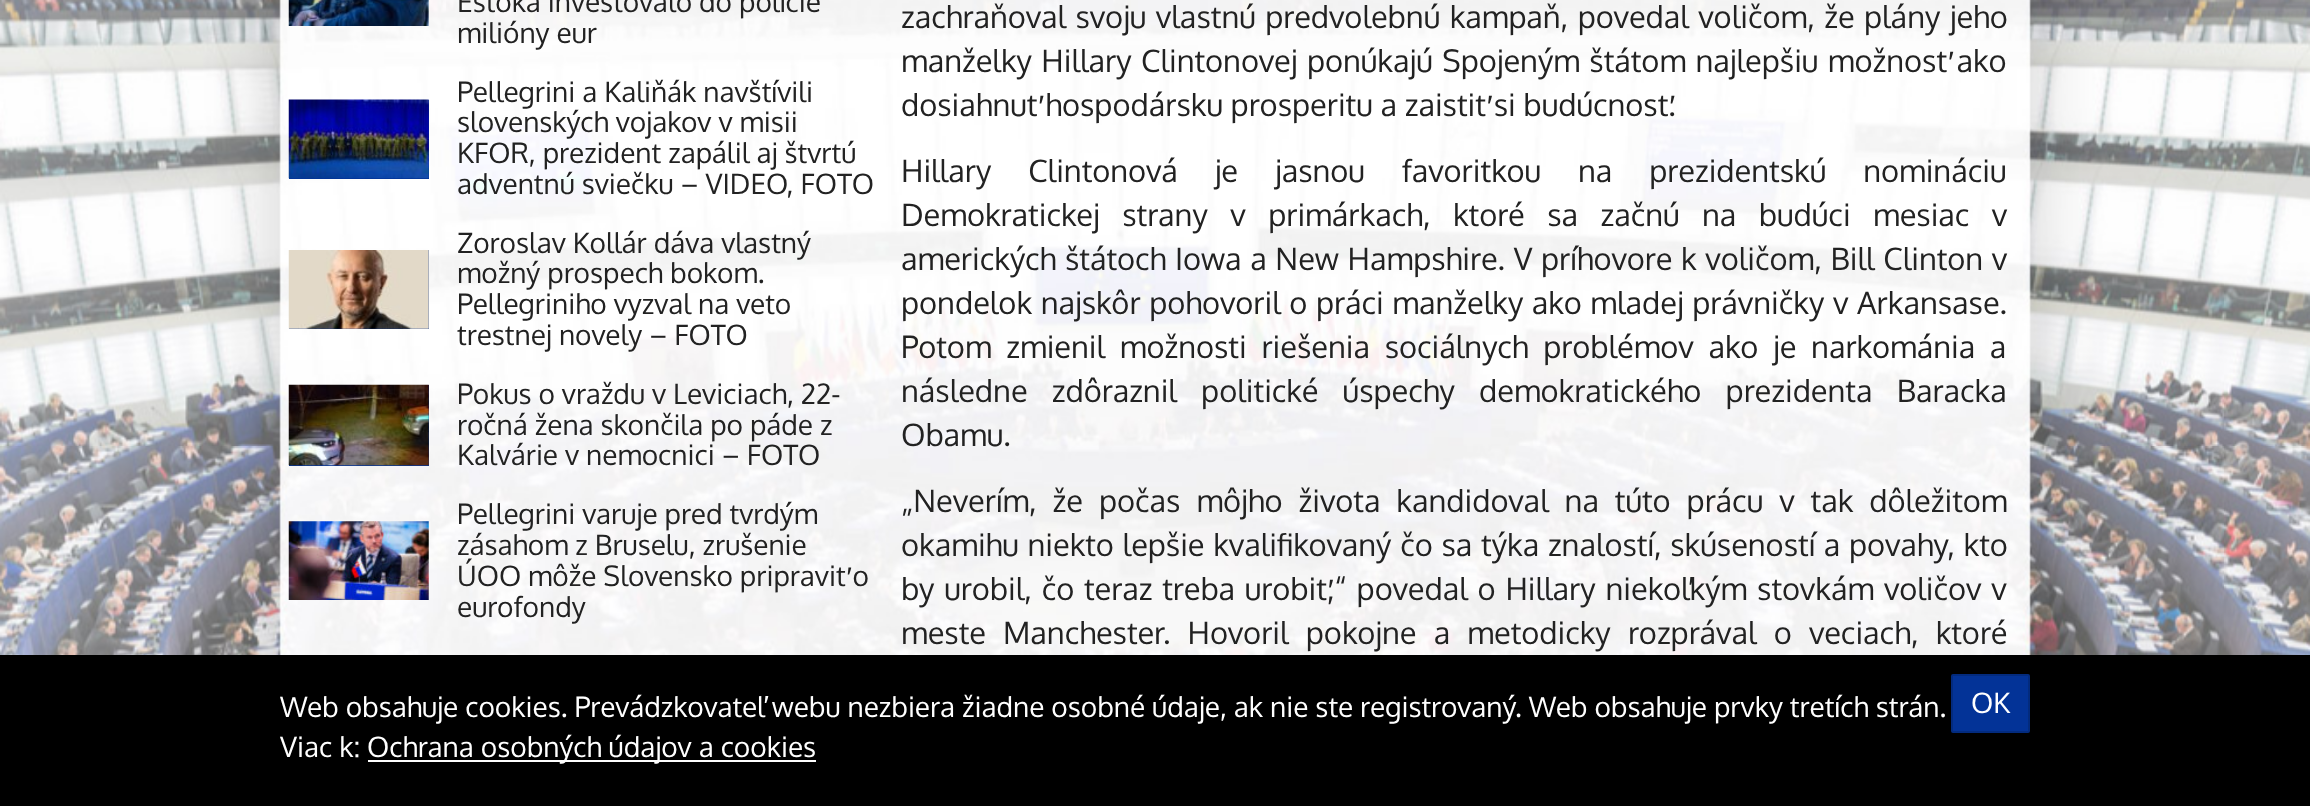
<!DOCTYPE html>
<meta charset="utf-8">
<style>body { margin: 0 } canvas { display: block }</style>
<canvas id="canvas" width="2310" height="806"></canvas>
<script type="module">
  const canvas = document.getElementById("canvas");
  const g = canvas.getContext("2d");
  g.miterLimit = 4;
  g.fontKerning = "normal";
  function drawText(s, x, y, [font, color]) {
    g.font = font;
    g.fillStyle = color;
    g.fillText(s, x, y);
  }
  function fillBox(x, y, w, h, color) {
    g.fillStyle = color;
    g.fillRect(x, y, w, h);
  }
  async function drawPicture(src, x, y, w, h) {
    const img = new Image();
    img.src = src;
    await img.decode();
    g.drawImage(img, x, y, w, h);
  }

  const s1 = ["28px Oxygen", "#222222"];
  const s2 = ["30.8px Oxygen", "#222222"];
  const s3 = ["28px Oxygen", "#FFFFFF"];

  fillBox(0, 0, 2310, 806, "#FFFFFF");
  await drawPicture("pic1.png", 0, 0, 2310, 655);
  await drawPicture("pic2.png", 288, 0, 141, 26);
  drawText("Eštoka investovalo do polície", 457, 12, s1);
  drawText("milióny eur", 457, 43, s1);
  fillBox(289, 100, 140, 79, "#033397");
  await drawPicture("pic3.png", 288, 99, 141, 80);
  drawText("Pellegrini a Kaliňák navštívili", 457, 102, s1);
  drawText("slovenských vojakov v misii", 457, 132, s1);
  drawText("KFOR, prezident zapálil aj štvrtú", 457, 163, s1);
  drawText("adventnú sviečku – VIDEO, FOTO", 457, 194, s1);
  fillBox(289, 250, 140, 79, "#033397");
  await drawPicture("pic4.png", 288, 250, 141, 79);
  drawText("Zoroslav Kollár dáva vlastný", 457, 253, s1);
  drawText("možný prospech bokom.", 457, 283, s1);
  drawText("Pellegriniho vyzval na veto", 457, 314, s1);
  drawText("trestnej novely – FOTO", 457, 345, s1);
  fillBox(289, 385, 140, 81, "#033397");
  await drawPicture("pic5.png", 288, 384, 141, 82);
  drawText("Pokus o vraždu v Leviciach, 22-", 457, 404, s1);
  drawText("ročná žena skončila po páde z", 457, 435, s1);
  drawText("Kalvárie v nemocnici – FOTO", 457, 465, s1);
  await drawPicture("pic6.png", 288, 521, 141, 79);
  drawText("Pellegrini varuje pred tvrdým", 457, 524, s1);
  drawText("zásahom z Bruselu, zrušenie", 457, 555, s1);
  drawText("ÚOO môže Slovensko pripraviť o", 457, 586, s1);
  drawText("eurofondy", 457, 617, s1);
  g.wordSpacing = "1.75px";
  drawText("zachraňoval svoju vlastnú predvolebnú kampaň, povedal voličom, že plány jeho", 901, 28, s2);
  drawText("manželky Hillary Clintonovej ponúkajú Spojeným štátom najlepšiu možnosť ako", 901, 72, s2);
  g.wordSpacing = "0px";
  drawText("dosiahnuť hospodársku prosperitu a zaistiť si budúcnosť.", 901, 116, s2);
  g.wordSpacing = "29.25px";
  drawText("Hillary Clintonová je jasnou favoritkou na prezidentskú nomináciu", 901, 182, s2);
  g.wordSpacing = "14.75px";
  drawText("Demokratickej strany v primárkach, ktoré sa začnú na budúci mesiac v", 901, 226, s2);
  g.wordSpacing = "1px";
  drawText("amerických štátoch Iowa a New Hampshire. V príhovore k voličom, Bill Clinton v", 901, 270, s2);
  g.wordSpacing = "0.9px";
  drawText("pondelok najskôr pohovoril o práci manželky ako mladej právničky v Arkansase.", 901, 314, s2);
  g.wordSpacing = "7px";
  drawText("Potom zmienil možnosti riešenia sociálnych problémov ako je narkománia a", 901, 358, s2);
  g.wordSpacing = "16.5px";
  drawText("následne zdôraznil politické úspechy demokratického prezidenta Baracka", 901, 402, s2);
  g.wordSpacing = "0px";
  drawText("Obamu.", 901, 446, s2);
  g.wordSpacing = "8.25px";
  drawText("„Neverím, že počas môjho života kandidoval na túto prácu v tak dôležitom", 901, 512, s2);
  g.wordSpacing = "1px";
  drawText("okamihu niekto lepšie kvalifikovaný čo sa týka znalostí, skúseností a povahy, kto", 901, 556, s2);
  g.wordSpacing = "2.1px";
  drawText("by urobil, čo teraz treba urobiť,“ povedal o Hillary niekoľkým stovkám voličov v", 901, 600, s2);
  g.wordSpacing = "9.5px";
  drawText("meste Manchester. Hovoril pokojne a metodicky rozprával o veciach, ktoré", 901, 644, s2);
  fillBox(0, 655, 2310, 151, "#000000");
  g.wordSpacing = "0px";
  drawText("Web obsahuje cookies. Prevádzkovateľ webu nezbiera žiadne osobné údaje, ak nie ste registrovaný. Web obsahuje prvky tretích strán.", 280, 717, s3);
  drawText("Viac k:", 280, 757, s3);
  fillBox(368, 760, 448, 2, "#FFFFFF");
  drawText("Ochrana osobných údajov a cookies", 367, 757, s3);
  g.fillStyle = "#033397";
  g.beginPath();
  g.roundRect(1952, 675, 77, 57, 1);
  g.fill();
  g.strokeStyle = "#032B7E";
  g.lineWidth = 2;
  g.stroke();
  drawText("OK", 1971, 713, s3);
</script>
